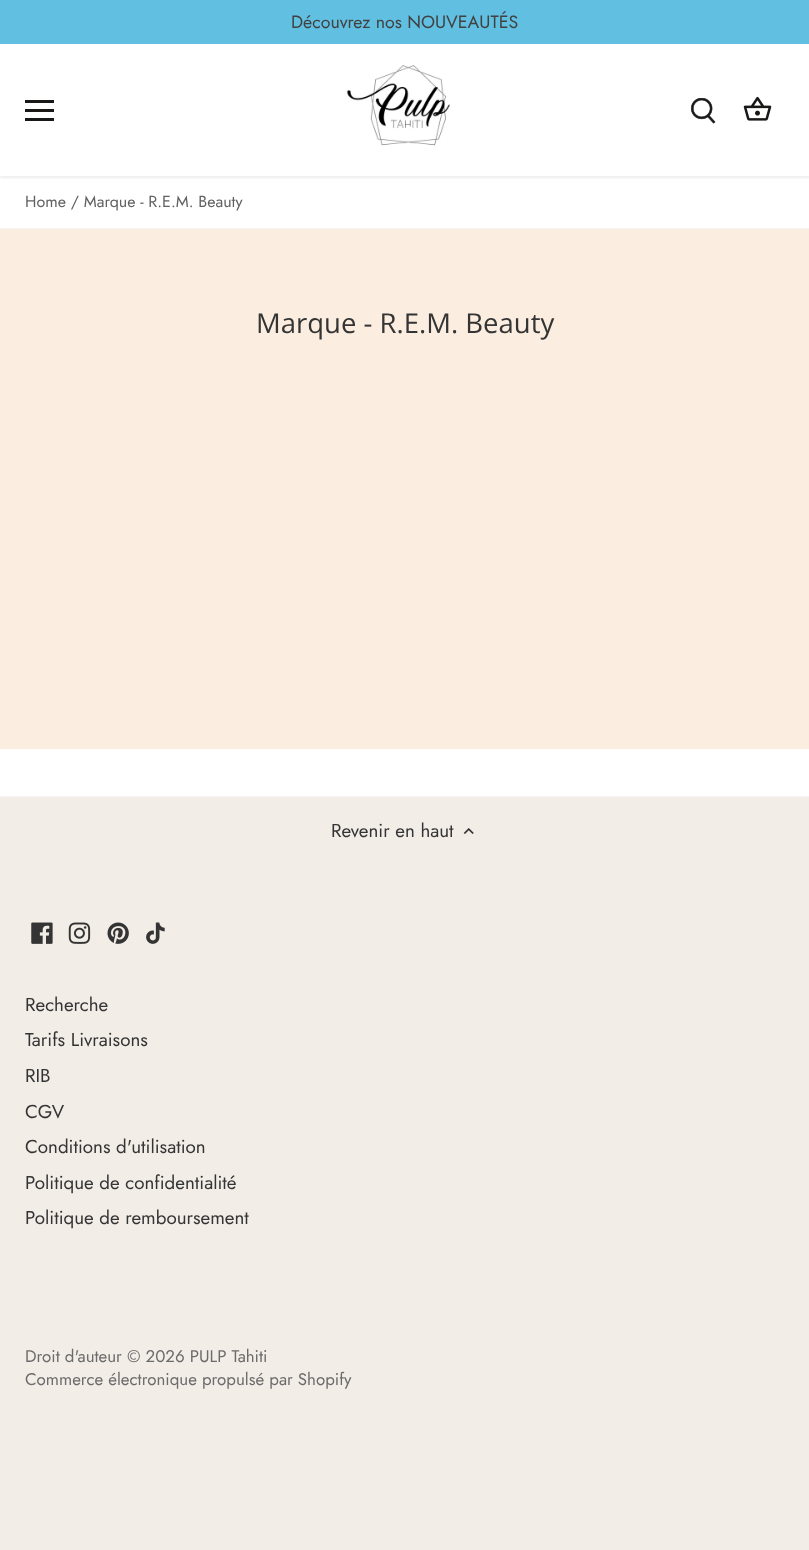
<!DOCTYPE html>
<meta charset="utf-8">
<style>body { margin: 0 } canvas { display: block }</style>
<canvas id="canvas" width="809" height="1550"></canvas>
<script type="module">
  const canvas = document.getElementById("canvas");
  const g = canvas.getContext("2d");
  g.miterLimit = 4;
  g.fontKerning = "normal";
  function drawText(s, x, y, [font, color]) {
    g.font = font;
    g.fillStyle = color;
    g.fillText(s, x, y);
  }
  function fillBox(x, y, w, h, color) {
    g.fillStyle = color;
    g.fillRect(x, y, w, h);
  }
  async function drawPicture(src, x, y, w, h) {
    const img = new Image();
    img.src = src;
    await img.decode();
    g.drawImage(img, x, y, w, h);
  }

  const s1 = ["17.75px Jost", "#414141"];
  const s2 = ["16px Jost", "#616161"];
  const s3 = ["27.5px Open Sans", "#343434"];
  const s4 = ["18.75px Jost", "#343434"];
  const s5 = ["16.9px Jost", "#6B6B6B"];

  fillBox(0, 0, 809, 1550, "#F3EDE8");
  fillBox(0, 44, 809, 752, "#FFFFFF");
  g.save();
  g.beginPath();
  g.rect(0, 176, 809, 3);
  g.clip();
  g.fillStyle = "rgba(0, 0, 0, 0.08)";
  g.filter = "blur(2px)";
  g.beginPath();
  g.rect(-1, 43, 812, 135);
  g.fill();
  g.filter = "none";
  g.restore();
  fillBox(0, 0, 809, 44, "#61BFE1");
  drawText("Découvrez nos NOUVEAUTÉS", 291, 28, s1);
  fillBox(25, 100, 29, 3, "#191817");
  fillBox(25, 109, 29, 3, "#191817");
  fillBox(25, 118, 29, 3, "#191817");
  await drawPicture("pic1.png", 346, 65, 104, 81);
  await drawPicture("pic2.png", 690, 98, 26, 26);
  await drawPicture("pic3.png", 743, 96, 29, 25);
  fillBox(0, 228, 809, 1, "#F5F5F5");
  drawText("Home / Marque - R.E.M. Beauty", 25, 207, s2);
  fillBox(0, 229, 809, 520, "#FBEDDF");
  drawText("Marque - R.E.M. Beauty", 256, 333, s3);
  fillBox(0, 796, 809, 1, "#F5F5F5");
  drawText("Revenir en haut", 331, 837, s4);
  await drawPicture("pic4.png", 463, 828, 11, 6);
  await drawPicture("pic5.png", 31, 922, 22, 22);
  await drawPicture("pic6.png", 68, 922, 23, 22);
  await drawPicture("pic7.png", 107, 922, 22, 22);
  await drawPicture("pic8.png", 146, 922, 19, 22);
  drawText("Recherche", 25, 1011, s4);
  drawText("Tarifs Livraisons", 25, 1046, s4);
  drawText("RIB", 25, 1082, s4);
  drawText("CGV", 25, 1118, s4);
  drawText("Conditions d'utilisation", 25, 1153, s4);
  drawText("Politique de confidentialité", 25, 1189, s4);
  drawText("Politique de remboursement", 25, 1224, s4);
  drawText("Droit d'auteur © 2026 PULP Tahiti", 25, 1362, s5);
  drawText("Commerce électronique propulsé par Shopify", 25, 1385, s5);
</script>
